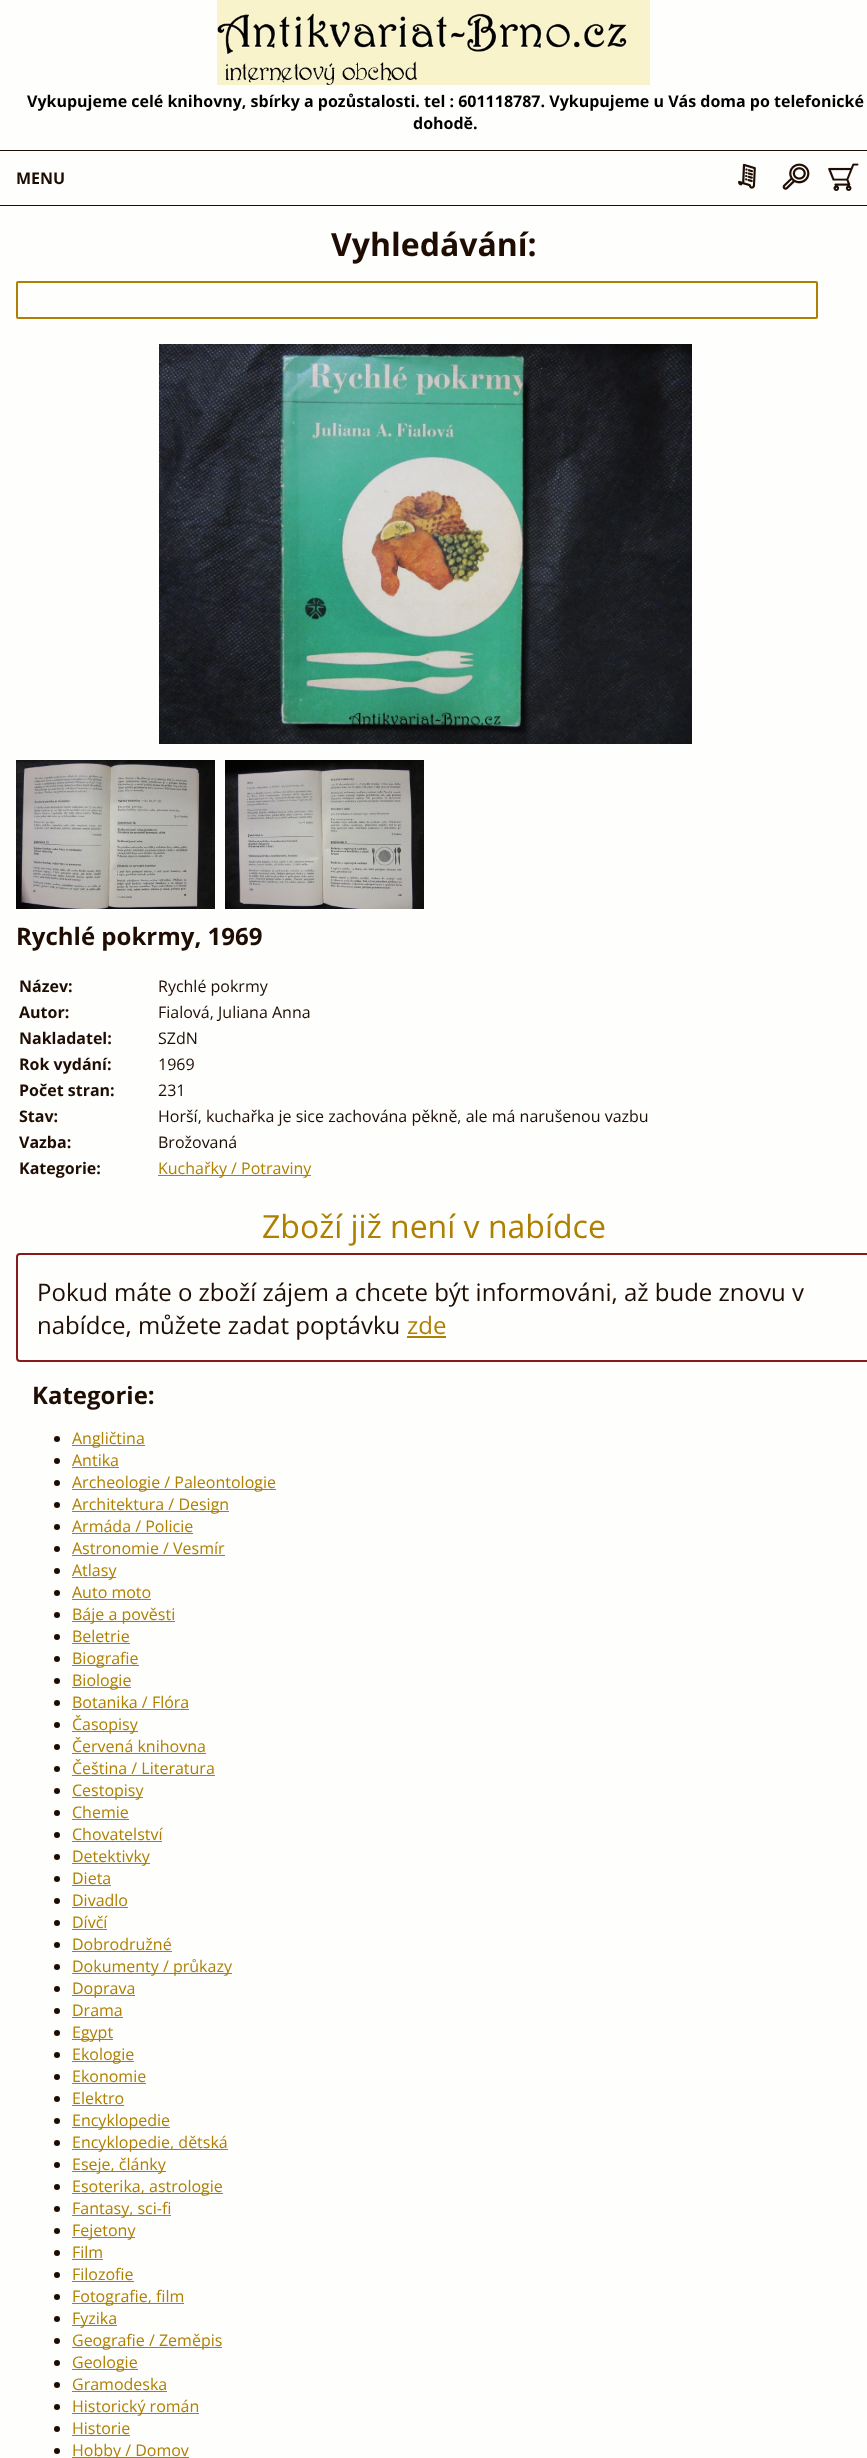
<!DOCTYPE html>
<meta charset="utf-8">
<style>body { margin: 0 } canvas { display: block }</style>
<canvas id="canvas" width="867" height="2458"></canvas>
<script type="module">
  const canvas = document.getElementById("canvas");
  const g = canvas.getContext("2d");
  g.miterLimit = 4;
  g.fontKerning = "normal";
  function drawText(s, x, y, [font, color]) {
    g.font = font;
    g.fillStyle = color;
    g.fillText(s, x, y);
  }
  function fillBox(x, y, w, h, color) {
    g.fillStyle = color;
    g.fillRect(x, y, w, h);
  }
  async function drawPicture(src, x, y, w, h) {
    const img = new Image();
    img.src = src;
    await img.decode();
    g.drawImage(img, x, y, w, h);
  }

  const s1 = ["bold 16px Open Sans", "#000000"];
  const s2 = ["bold 16px Open Sans", "#1F0D03"];
  const s3 = ["bold 32px Open Sans", "#1F0D03"];
  const s4 = ["bold 24px Open Sans", "#1F0D03"];
  const s5 = ["16px Open Sans", "#1F0D03"];
  const s6 = ["16px Open Sans", "#AF7F01"];
  const s7 = ["32px Open Sans", "#AF7F01"];
  const s8 = ["24px Open Sans", "#1F0D03"];
  const s9 = ["24px Open Sans", "#AF7F01"];

  fillBox(0, 0, 867, 2458, "#FEFEFC");
  await drawPicture("pic1.png", 217, 0, 433, 85);
  drawText("Vykupujeme celé knihovny, sbírky a pozůstalosti. tel : 601118787. Vykupujeme u Vás doma po telefonické", 27, 107, s1);
  drawText("dohodě.", 413, 129, s1);
  fillBox(0, 150, 867, 1, "#1F0D03");
  fillBox(0, 205, 867, 1, "#1F0D03");
  drawText("MENU", 16, 184, s2);
  await drawPicture("pic2.png", 738, 163, 18, 26);
  await drawPicture("pic3.png", 782, 163, 28, 27);
  await drawPicture("pic4.png", 828, 163, 31, 28);
  drawText("Vyhledávání:", 331, 256, s3);
  g.beginPath();
  g.roundRect(17, 282, 800, 36, 1);
  g.strokeStyle = "#AF7F01";
  g.lineWidth = 2;
  g.stroke();
  await drawPicture("pic5.png", 159, 344, 533, 400);
  await drawPicture("pic6.png", 16, 760, 199, 149);
  await drawPicture("pic7.png", 225, 760, 199, 149);
  drawText("Rychlé pokrmy, 1969", 16, 945, s4);
  drawText("Název:", 19, 992, s2);
  drawText("Rychlé pokrmy", 158, 992, s5);
  drawText("Autor:", 19, 1018, s2);
  drawText("Fialová, Juliana Anna", 158, 1018, s5);
  drawText("Nakladatel:", 19, 1044, s2);
  drawText("SZdN", 158, 1044, s5);
  drawText("Rok vydání:", 19, 1070, s2);
  drawText("1969", 158, 1070, s5);
  drawText("Počet stran:", 19, 1096, s2);
  drawText("231", 158, 1096, s5);
  drawText("Stav:", 19, 1122, s2);
  drawText("Horší, kuchařka je sice zachována pěkně, ale má narušenou vazbu", 158, 1122, s5);
  drawText("Vazba:", 19, 1148, s2);
  drawText("Brožovaná", 158, 1148, s5);
  drawText("Kategorie:", 19, 1174, s2);
  fillBox(158, 1175, 153, 1, "#AF7F01");
  drawText("Kuchařky / Potraviny", 158, 1174, s6);
  drawText("Zboží již není v nabídce", 262, 1238, s7);
  g.beginPath();
  g.roundRect(17, 1254, 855, 107, 3);
  g.strokeStyle = "#881B1A";
  g.stroke();
  drawText("Pokud máte o zboží zájem a chcete být informováni, až bude znovu v", 37, 1301, s8);
  drawText("nabídce, můžete zadat poptávku", 37, 1334, s8);
  drawText("zde", 407, 1334, s9);
  fillBox(407, 1336, 39, 2, "#AF7F01");
  drawText("Kategorie:", 32, 1404, s4);
  g.beginPath();
  g.arc(57, 1439, 3, 0, Math.PI * 2);
  g.fill();
  fillBox(72, 1445, 73, 1, "#AF7F01");
  drawText("Angličtina", 72, 1444, s6);
  g.fillStyle = "#1F0D03";
  g.beginPath();
  g.arc(57, 1461, 3, 0, Math.PI * 2);
  g.fill();
  drawText("Antika", 72, 1466, s6);
  fillBox(72, 1467, 47, 1, "#AF7F01");
  g.fillStyle = "#1F0D03";
  g.beginPath();
  g.arc(57, 1483, 3, 0, Math.PI * 2);
  g.fill();
  fillBox(72, 1489, 204, 1, "#AF7F01");
  drawText("Archeologie / Paleontologie", 72, 1488, s6);
  g.fillStyle = "#1F0D03";
  g.beginPath();
  g.arc(57, 1505, 3, 0, Math.PI * 2);
  g.fill();
  fillBox(72, 1511, 157, 1, "#AF7F01");
  drawText("Architektura / Design", 72, 1510, s6);
  g.fillStyle = "#1F0D03";
  g.beginPath();
  g.arc(57, 1527, 3, 0, Math.PI * 2);
  g.fill();
  drawText("Armáda / Policie", 72, 1532, s6);
  fillBox(72, 1533, 121, 1, "#AF7F01");
  g.fillStyle = "#1F0D03";
  g.beginPath();
  g.arc(57, 1549, 3, 0, Math.PI * 2);
  g.fill();
  drawText("Astronomie / Vesmír", 72, 1554, s6);
  fillBox(72, 1555, 153, 1, "#AF7F01");
  g.fillStyle = "#1F0D03";
  g.beginPath();
  g.arc(57, 1571, 3, 0, Math.PI * 2);
  g.fill();
  fillBox(72, 1577, 44, 1, "#AF7F01");
  drawText("Atlasy", 72, 1576, s6);
  g.fillStyle = "#1F0D03";
  g.beginPath();
  g.arc(57, 1593, 3, 0, Math.PI * 2);
  g.fill();
  drawText("Auto moto", 72, 1598, s6);
  fillBox(72, 1599, 79, 1, "#AF7F01");
  g.fillStyle = "#1F0D03";
  g.beginPath();
  g.arc(57, 1615, 3, 0, Math.PI * 2);
  g.fill();
  fillBox(72, 1621, 103, 1, "#AF7F01");
  drawText("Báje a pověsti", 72, 1620, s6);
  g.fillStyle = "#1F0D03";
  g.beginPath();
  g.arc(57, 1637, 3, 0, Math.PI * 2);
  g.fill();
  drawText("Beletrie", 72, 1642, s6);
  fillBox(72, 1643, 58, 1, "#AF7F01");
  g.fillStyle = "#1F0D03";
  g.beginPath();
  g.arc(57, 1659, 3, 0, Math.PI * 2);
  g.fill();
  fillBox(72, 1665, 67, 1, "#AF7F01");
  drawText("Biografie", 72, 1664, s6);
  g.fillStyle = "#1F0D03";
  g.beginPath();
  g.arc(57, 1681, 3, 0, Math.PI * 2);
  g.fill();
  fillBox(72, 1687, 59, 1, "#AF7F01");
  drawText("Biologie", 72, 1686, s6);
  g.fillStyle = "#1F0D03";
  g.beginPath();
  g.arc(57, 1703, 3, 0, Math.PI * 2);
  g.fill();
  drawText("Botanika / Flóra", 72, 1708, s6);
  fillBox(72, 1709, 117, 1, "#AF7F01");
  g.fillStyle = "#1F0D03";
  g.beginPath();
  g.arc(57, 1725, 3, 0, Math.PI * 2);
  g.fill();
  fillBox(72, 1731, 66, 1, "#AF7F01");
  drawText("Časopisy", 72, 1730, s6);
  g.fillStyle = "#1F0D03";
  g.beginPath();
  g.arc(57, 1747, 3, 0, Math.PI * 2);
  g.fill();
  drawText("Červená knihovna", 72, 1752, s6);
  fillBox(72, 1753, 134, 1, "#AF7F01");
  g.fillStyle = "#1F0D03";
  g.beginPath();
  g.arc(57, 1769, 3, 0, Math.PI * 2);
  g.fill();
  drawText("Čeština / Literatura", 72, 1774, s6);
  fillBox(72, 1775, 143, 1, "#AF7F01");
  g.fillStyle = "#1F0D03";
  g.beginPath();
  g.arc(57, 1791, 3, 0, Math.PI * 2);
  g.fill();
  fillBox(72, 1797, 71, 1, "#AF7F01");
  drawText("Cestopisy", 72, 1796, s6);
  g.fillStyle = "#1F0D03";
  g.beginPath();
  g.arc(57, 1813, 3, 0, Math.PI * 2);
  g.fill();
  drawText("Chemie", 72, 1818, s6);
  fillBox(72, 1819, 57, 1, "#AF7F01");
  g.fillStyle = "#1F0D03";
  g.beginPath();
  g.arc(57, 1835, 3, 0, Math.PI * 2);
  g.fill();
  drawText("Chovatelství", 72, 1840, s6);
  fillBox(72, 1841, 90, 1, "#AF7F01");
  g.fillStyle = "#1F0D03";
  g.beginPath();
  g.arc(57, 1857, 3, 0, Math.PI * 2);
  g.fill();
  fillBox(72, 1863, 78, 1, "#AF7F01");
  drawText("Detektivky", 72, 1862, s6);
  g.fillStyle = "#1F0D03";
  g.beginPath();
  g.arc(57, 1879, 3, 0, Math.PI * 2);
  g.fill();
  drawText("Dieta", 72, 1884, s6);
  fillBox(72, 1885, 39, 1, "#AF7F01");
  g.fillStyle = "#1F0D03";
  g.beginPath();
  g.arc(57, 1901, 3, 0, Math.PI * 2);
  g.fill();
  drawText("Divadlo", 72, 1906, s6);
  fillBox(72, 1907, 56, 1, "#AF7F01");
  g.fillStyle = "#1F0D03";
  g.beginPath();
  g.arc(57, 1923, 3, 0, Math.PI * 2);
  g.fill();
  drawText("Dívčí", 72, 1928, s6);
  fillBox(72, 1929, 35, 1, "#AF7F01");
  g.fillStyle = "#1F0D03";
  g.beginPath();
  g.arc(57, 1945, 3, 0, Math.PI * 2);
  g.fill();
  drawText("Dobrodružné", 72, 1950, s6);
  fillBox(72, 1951, 100, 1, "#AF7F01");
  g.fillStyle = "#1F0D03";
  g.beginPath();
  g.arc(57, 1967, 3, 0, Math.PI * 2);
  g.fill();
  fillBox(72, 1973, 160, 1, "#AF7F01");
  drawText("Dokumenty / průkazy", 72, 1972, s6);
  g.fillStyle = "#1F0D03";
  g.beginPath();
  g.arc(57, 1989, 3, 0, Math.PI * 2);
  g.fill();
  fillBox(72, 1995, 63, 1, "#AF7F01");
  drawText("Doprava", 72, 1994, s6);
  g.fillStyle = "#1F0D03";
  g.beginPath();
  g.arc(57, 2011, 3, 0, Math.PI * 2);
  g.fill();
  drawText("Drama", 72, 2016, s6);
  fillBox(72, 2017, 51, 1, "#AF7F01");
  g.fillStyle = "#1F0D03";
  g.beginPath();
  g.arc(57, 2033, 3, 0, Math.PI * 2);
  g.fill();
  fillBox(72, 2039, 41, 1, "#AF7F01");
  drawText("Egypt", 72, 2038, s6);
  g.fillStyle = "#1F0D03";
  g.beginPath();
  g.arc(57, 2055, 3, 0, Math.PI * 2);
  g.fill();
  fillBox(72, 2061, 62, 1, "#AF7F01");
  drawText("Ekologie", 72, 2060, s6);
  g.fillStyle = "#1F0D03";
  g.beginPath();
  g.arc(57, 2077, 3, 0, Math.PI * 2);
  g.fill();
  drawText("Ekonomie", 72, 2082, s6);
  fillBox(72, 2083, 74, 1, "#AF7F01");
  g.fillStyle = "#1F0D03";
  g.beginPath();
  g.arc(57, 2099, 3, 0, Math.PI * 2);
  g.fill();
  drawText("Elektro", 72, 2104, s6);
  fillBox(72, 2105, 52, 1, "#AF7F01");
  g.fillStyle = "#1F0D03";
  g.beginPath();
  g.arc(57, 2121, 3, 0, Math.PI * 2);
  g.fill();
  fillBox(72, 2127, 98, 1, "#AF7F01");
  drawText("Encyklopedie", 72, 2126, s6);
  g.fillStyle = "#1F0D03";
  g.beginPath();
  g.arc(57, 2143, 3, 0, Math.PI * 2);
  g.fill();
  fillBox(72, 2149, 156, 1, "#AF7F01");
  drawText("Encyklopedie, dětská", 72, 2148, s6);
  g.fillStyle = "#1F0D03";
  g.beginPath();
  g.arc(57, 2165, 3, 0, Math.PI * 2);
  g.fill();
  fillBox(72, 2171, 94, 1, "#AF7F01");
  drawText("Eseje, články", 72, 2170, s6);
  g.fillStyle = "#1F0D03";
  g.beginPath();
  g.arc(57, 2187, 3, 0, Math.PI * 2);
  g.fill();
  fillBox(72, 2193, 151, 1, "#AF7F01");
  drawText("Esoterika, astrologie", 72, 2192, s6);
  g.fillStyle = "#1F0D03";
  g.beginPath();
  g.arc(57, 2209, 3, 0, Math.PI * 2);
  g.fill();
  fillBox(72, 2215, 99, 1, "#AF7F01");
  drawText("Fantasy, sci-fi", 72, 2214, s6);
  g.fillStyle = "#1F0D03";
  g.beginPath();
  g.arc(57, 2231, 3, 0, Math.PI * 2);
  g.fill();
  fillBox(72, 2237, 63, 1, "#AF7F01");
  drawText("Fejetony", 72, 2236, s6);
  g.fillStyle = "#1F0D03";
  g.beginPath();
  g.arc(57, 2253, 3, 0, Math.PI * 2);
  g.fill();
  drawText("Film", 72, 2258, s6);
  fillBox(72, 2259, 31, 1, "#AF7F01");
  g.fillStyle = "#1F0D03";
  g.beginPath();
  g.arc(57, 2275, 3, 0, Math.PI * 2);
  g.fill();
  drawText("Filozofie", 72, 2280, s6);
  fillBox(72, 2281, 62, 1, "#AF7F01");
  g.fillStyle = "#1F0D03";
  g.beginPath();
  g.arc(57, 2297, 3, 0, Math.PI * 2);
  g.fill();
  fillBox(72, 2303, 112, 1, "#AF7F01");
  drawText("Fotografie, film", 72, 2302, s6);
  g.fillStyle = "#1F0D03";
  g.beginPath();
  g.arc(57, 2319, 3, 0, Math.PI * 2);
  g.fill();
  fillBox(72, 2325, 45, 1, "#AF7F01");
  drawText("Fyzika", 72, 2324, s6);
  g.fillStyle = "#1F0D03";
  g.beginPath();
  g.arc(57, 2341, 3, 0, Math.PI * 2);
  g.fill();
  fillBox(72, 2347, 150, 1, "#AF7F01");
  drawText("Geografie / Zeměpis", 72, 2346, s6);
  g.fillStyle = "#1F0D03";
  g.beginPath();
  g.arc(57, 2363, 3, 0, Math.PI * 2);
  g.fill();
  fillBox(72, 2369, 66, 1, "#AF7F01");
  drawText("Geologie", 72, 2368, s6);
  g.fillStyle = "#1F0D03";
  g.beginPath();
  g.arc(57, 2385, 3, 0, Math.PI * 2);
  g.fill();
  drawText("Gramodeska", 72, 2390, s6);
  fillBox(72, 2391, 95, 1, "#AF7F01");
  g.fillStyle = "#1F0D03";
  g.beginPath();
  g.arc(57, 2407, 3, 0, Math.PI * 2);
  g.fill();
  fillBox(72, 2413, 127, 1, "#AF7F01");
  drawText("Historický román", 72, 2412, s6);
  g.fillStyle = "#1F0D03";
  g.beginPath();
  g.arc(57, 2429, 3, 0, Math.PI * 2);
  g.fill();
  drawText("Historie", 72, 2434, s6);
  fillBox(72, 2435, 58, 1, "#AF7F01");
  g.fillStyle = "#1F0D03";
  g.beginPath();
  g.arc(57, 2451, 3, 0, Math.PI * 2);
  g.fill();
  fillBox(72, 2457, 117, 1, "#AF7F01");
  drawText("Hobby / Domov", 72, 2456, s6);
</script>
